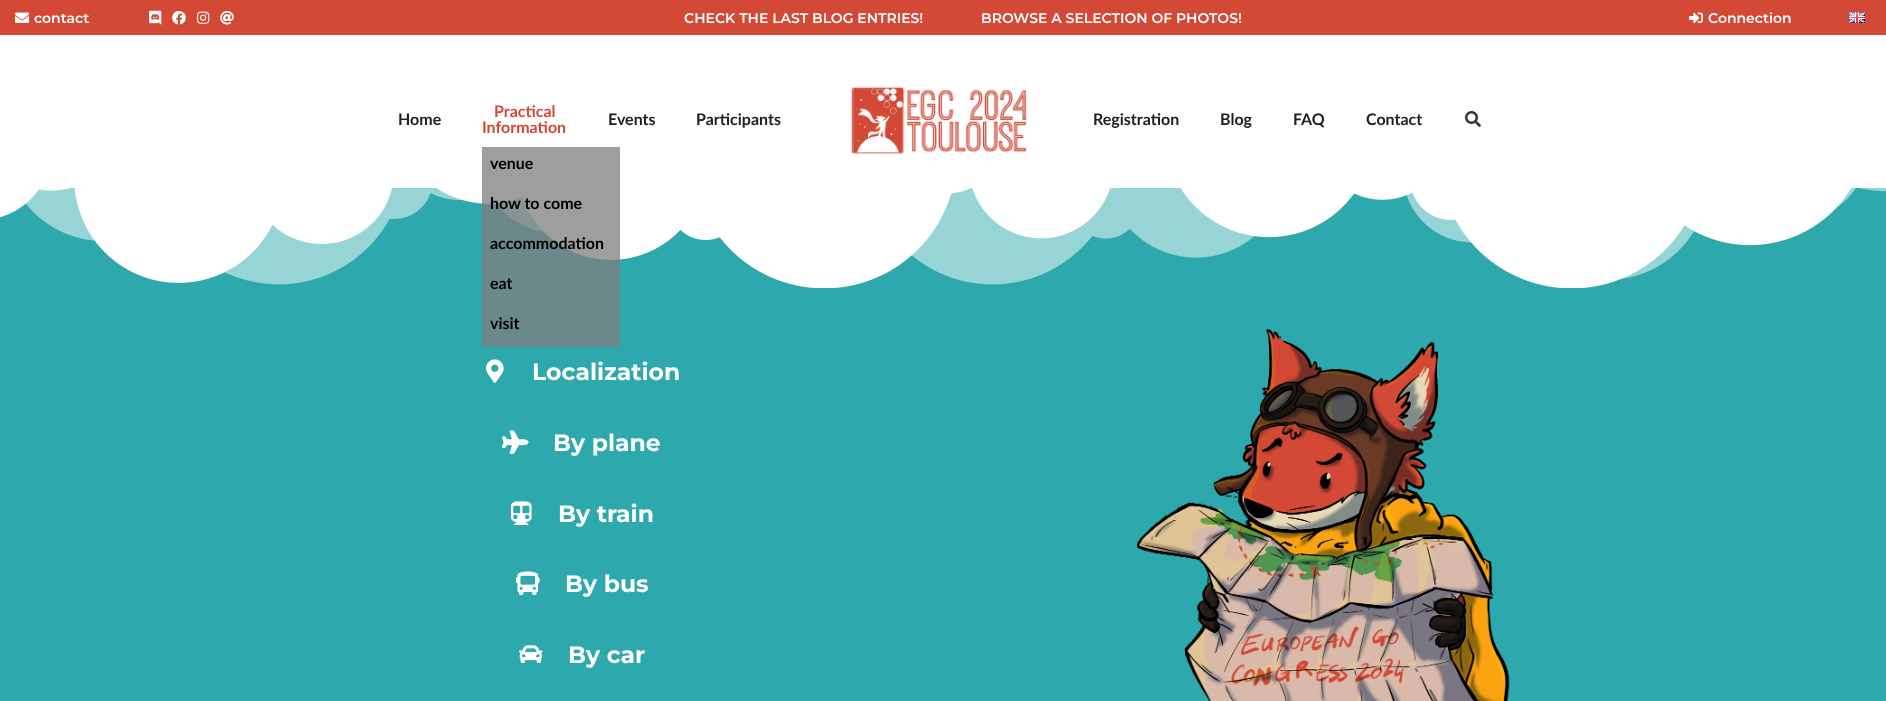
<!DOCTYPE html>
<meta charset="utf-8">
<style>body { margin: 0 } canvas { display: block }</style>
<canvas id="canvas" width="1886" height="701"></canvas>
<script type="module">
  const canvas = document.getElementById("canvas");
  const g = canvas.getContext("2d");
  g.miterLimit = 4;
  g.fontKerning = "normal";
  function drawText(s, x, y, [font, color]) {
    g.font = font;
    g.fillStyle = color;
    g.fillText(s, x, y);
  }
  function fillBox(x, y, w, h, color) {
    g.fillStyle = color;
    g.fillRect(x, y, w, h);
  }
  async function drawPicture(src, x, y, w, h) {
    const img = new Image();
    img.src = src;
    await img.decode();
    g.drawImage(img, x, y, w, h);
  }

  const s1 = ["600 14px Montserrat", "#FFFFFF"];
  const s2 = ["bold 16px Lato", "#212121"];
  const s3 = ["bold 16px Lato", "#D44935"];
  const s4 = ["bold 16px Lato", "#000000"];
  const s5 = ["bold 23.5px Montserrat", "#FFFFFF"];

  fillBox(0, 0, 1886, 701, "#FFFFFF");
  fillBox(0, 0, 1886, 35, "#D44935");
  await drawPicture("pic1.png", 15, 12, 14, 11);
  drawText("contact", 34, 23, s1);
  await drawPicture("pic2.png", 149, 10, 13, 15);
  await drawPicture("pic3.png", 172, 11, 14, 14);
  await drawPicture("pic4.png", 197, 11, 13, 13);
  await drawPicture("pic5.png", 220, 11, 14, 14);
  drawText("CHECK THE LAST BLOG ENTRIES!", 684, 23, s1);
  drawText("BROWSE A SELECTION OF PHOTOS!", 981, 23, s1);
  await drawPicture("pic6.png", 1689, 12, 14, 12);
  drawText("Connection", 1708, 23, s1);
  await drawPicture("pic7.png", 1849, 12, 16, 11);
  drawText("Home", 398, 125, s2);
  drawText("Practical", 494, 117, s3);
  drawText("Information", 482, 133, s3);
  fillBox(0, 188, 1886, 513, "#2DA9AD");
  await drawPicture("pic10.png", 0, 188, 1886, 100);
  fillBox(482, 147, 138, 200, "rgba(128, 128, 128, 0.76)");
  drawText("venue", 490, 169, s4);
  drawText("how to come", 490, 209, s4);
  drawText("accommodation", 490, 249, s4);
  drawText("eat", 490, 289, s4);
  drawText("visit", 490, 329, s4);
  drawText("Events", 608, 125, s2);
  drawText("Participants", 696, 125, s2);
  await drawPicture("pic8.png", 851, 87, 176, 68);
  drawText("Registration", 1093, 125, s2);
  drawText("Blog", 1220, 125, s2);
  drawText("FAQ", 1293, 125, s2);
  drawText("Contact", 1366, 125, s2);
  await drawPicture("pic9.png", 1465, 111, 16, 16);
  await drawPicture("pic11.png", 486, 359, 18, 24);
  drawText("Localization", 532, 380, s5);
  await drawPicture("pic12.png", 502, 430, 27, 24);
  drawText("By plane", 553, 451, s5);
  await drawPicture("pic13.png", 511, 501, 21, 24);
  drawText("By train", 558, 522, s5);
  await drawPicture("pic14.png", 516, 571, 24, 24);
  drawText("By bus", 565, 592, s5);
  await drawPicture("pic15.png", 519, 645, 24, 18);
  drawText("By car", 568, 663, s5);
  await drawPicture("pic16.png", 1137, 328, 373, 373);
</script>
